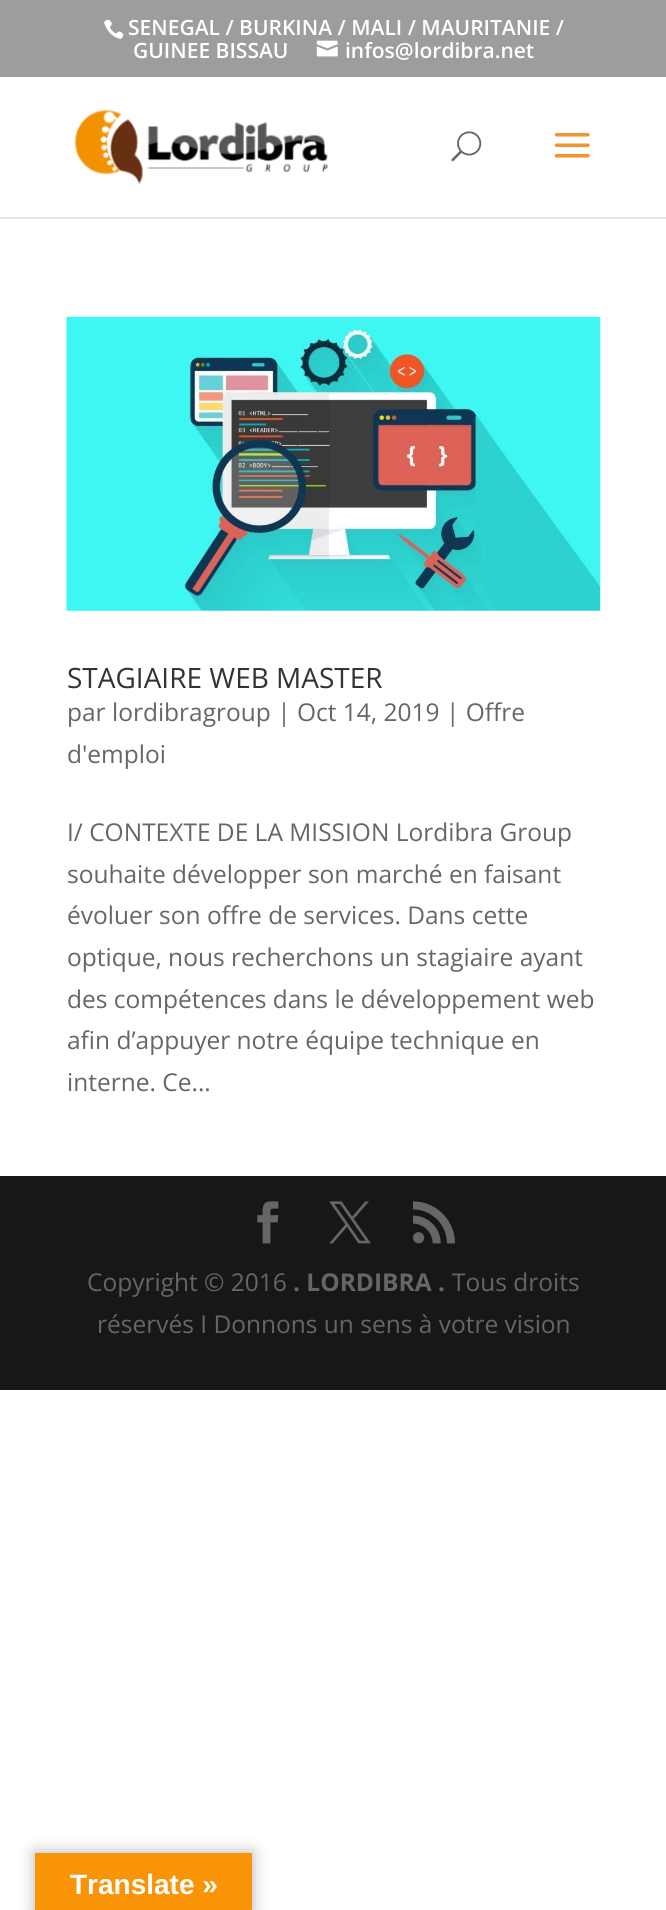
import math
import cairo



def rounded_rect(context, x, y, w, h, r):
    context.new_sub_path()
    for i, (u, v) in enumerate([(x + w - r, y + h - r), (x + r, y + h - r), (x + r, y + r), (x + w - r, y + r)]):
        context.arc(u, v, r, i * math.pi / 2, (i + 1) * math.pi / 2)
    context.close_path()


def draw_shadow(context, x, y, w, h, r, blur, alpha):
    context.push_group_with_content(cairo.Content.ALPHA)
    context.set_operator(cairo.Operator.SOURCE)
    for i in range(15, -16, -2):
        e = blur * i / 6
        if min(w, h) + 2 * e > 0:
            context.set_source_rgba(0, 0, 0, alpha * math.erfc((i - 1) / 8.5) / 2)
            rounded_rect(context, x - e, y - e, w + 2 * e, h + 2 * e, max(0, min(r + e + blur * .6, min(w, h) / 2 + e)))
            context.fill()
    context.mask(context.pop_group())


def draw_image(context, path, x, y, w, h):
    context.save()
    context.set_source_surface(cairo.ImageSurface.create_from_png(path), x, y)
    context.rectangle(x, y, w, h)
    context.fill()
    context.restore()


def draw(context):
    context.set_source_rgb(1, 1, 1)
    context.paint()
    context.set_source_rgb(157 / 255, 157 / 255, 156 / 255)
    context.rectangle(0, 0, 666, 77)
    context.fill()
    draw_image(context, "images/1.png", 104, 19, 20, 20)
    draw_image(context, "images/2.png", 316, 40, 22, 17)
    context.set_source_rgb(230 / 255, 230 / 255, 230 / 255)
    context.new_path()
    context.move_to(0, 217)
    context.line_to(0, 219)
    context.line_to(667, 219)
    context.line_to(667, 79)
    context.line_to(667, 217)
    context.close_path()
    context.fill()
    draw_image(context, "images/3.png", 74, 109, 254, 76)
    draw_image(context, "images/4.png", 451, 131, 31, 31)
    draw_image(context, "images/5.png", 554, 133, 36, 25)
    draw_image(context, "images/6.png", 66, 316, 535, 295)
    context.set_source_rgb(23 / 255, 23 / 255, 23 / 255)
    context.rectangle(0, 1176, 666, 214)
    context.fill()
    draw_image(context, "images/7.png", 257, 1201, 22, 43)
    draw_image(context, "images/8.png", 329, 1201, 42, 43)
    draw_image(context, "images/9.png", 413, 1201, 42, 43)
    context.set_source_rgb(0, 0, 0)
    draw_shadow(context, 35, 1853, 217, 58, 0, 8, 0.3)
    context.set_source_rgb(248 / 255, 148 / 255, 6 / 255)
    context.rectangle(35, 1853, 217, 57)
    context.fill()
    context.select_font_face("Open Sans SemiBold")
    context.set_font_size(21)
    context.set_source_rgb(1, 1, 1)
    context.move_to(128, 35)
    context.show_text("SENEGAL / BURKINA / MALI / MAURITANIE /")
    context.move_to(133, 58)
    context.show_text("GUINEE BISSAU")
    context.move_to(345, 58)
    context.show_text("infos@lordibra.net")
    context.select_font_face("Open Sans")
    context.set_font_size(28)
    context.set_source_rgb(51 / 255, 51 / 255, 51 / 255)
    context.move_to(67, 688)
    context.show_text("STAGIAIRE WEB MASTER")
    context.set_font_size(24.5)
    context.set_source_rgb(102 / 255, 102 / 255, 102 / 255)
    context.move_to(67, 721)
    context.show_text("par lordibragroup | Oct 14, 2019 | Offre")
    context.move_to(67, 763)
    context.show_text("d'emploi")
    context.move_to(67, 841)
    context.show_text("I/ CONTEXTE DE LA MISSION Lordibra Group")
    context.move_to(67, 883)
    context.show_text("souhaite développer son marché en faisant")
    context.move_to(67, 924)
    context.show_text("évoluer son offre de services. Dans cette")
    context.move_to(67, 966)
    context.show_text("optique, nous recherchons un stagiaire ayant")
    context.move_to(67, 1008)
    context.show_text("des compétences dans le développement web")
    context.move_to(67, 1049)
    context.show_text("afin d’appuyer notre équipe technique en")
    context.move_to(67, 1091)
    context.show_text("interne. Ce...")
    context.move_to(87, 1291)
    context.show_text("Copyright © 2016")
    context.select_font_face("Open Sans", cairo.FontSlant.NORMAL, cairo.FontWeight.BOLD)
    context.move_to(293, 1291)
    context.show_text(". LORDIBRA .")
    context.select_font_face("Open Sans")
    context.move_to(452, 1291)
    context.show_text("Tous droits")
    context.move_to(97, 1333)
    context.show_text("réservés I Donnons un sens à votre vision")
    context.select_font_face("Liberation Sans", cairo.FontSlant.NORMAL, cairo.FontWeight.BOLD)
    context.set_font_size(28)
    context.set_source_rgb(1, 1, 1)
    context.move_to(70, 1894)
    context.show_text("Translate »")


surface = cairo.ImageSurface(cairo.Format.RGB24, 666, 1910)
context = cairo.Context(surface)
options = cairo.FontOptions()
options.set_hint_metrics(cairo.HintMetrics.OFF)
options.set_hint_style(cairo.HintStyle.NONE)
context.set_font_options(options)
context.set_miter_limit(4)
draw(context)
surface.write_to_png("out.png")
